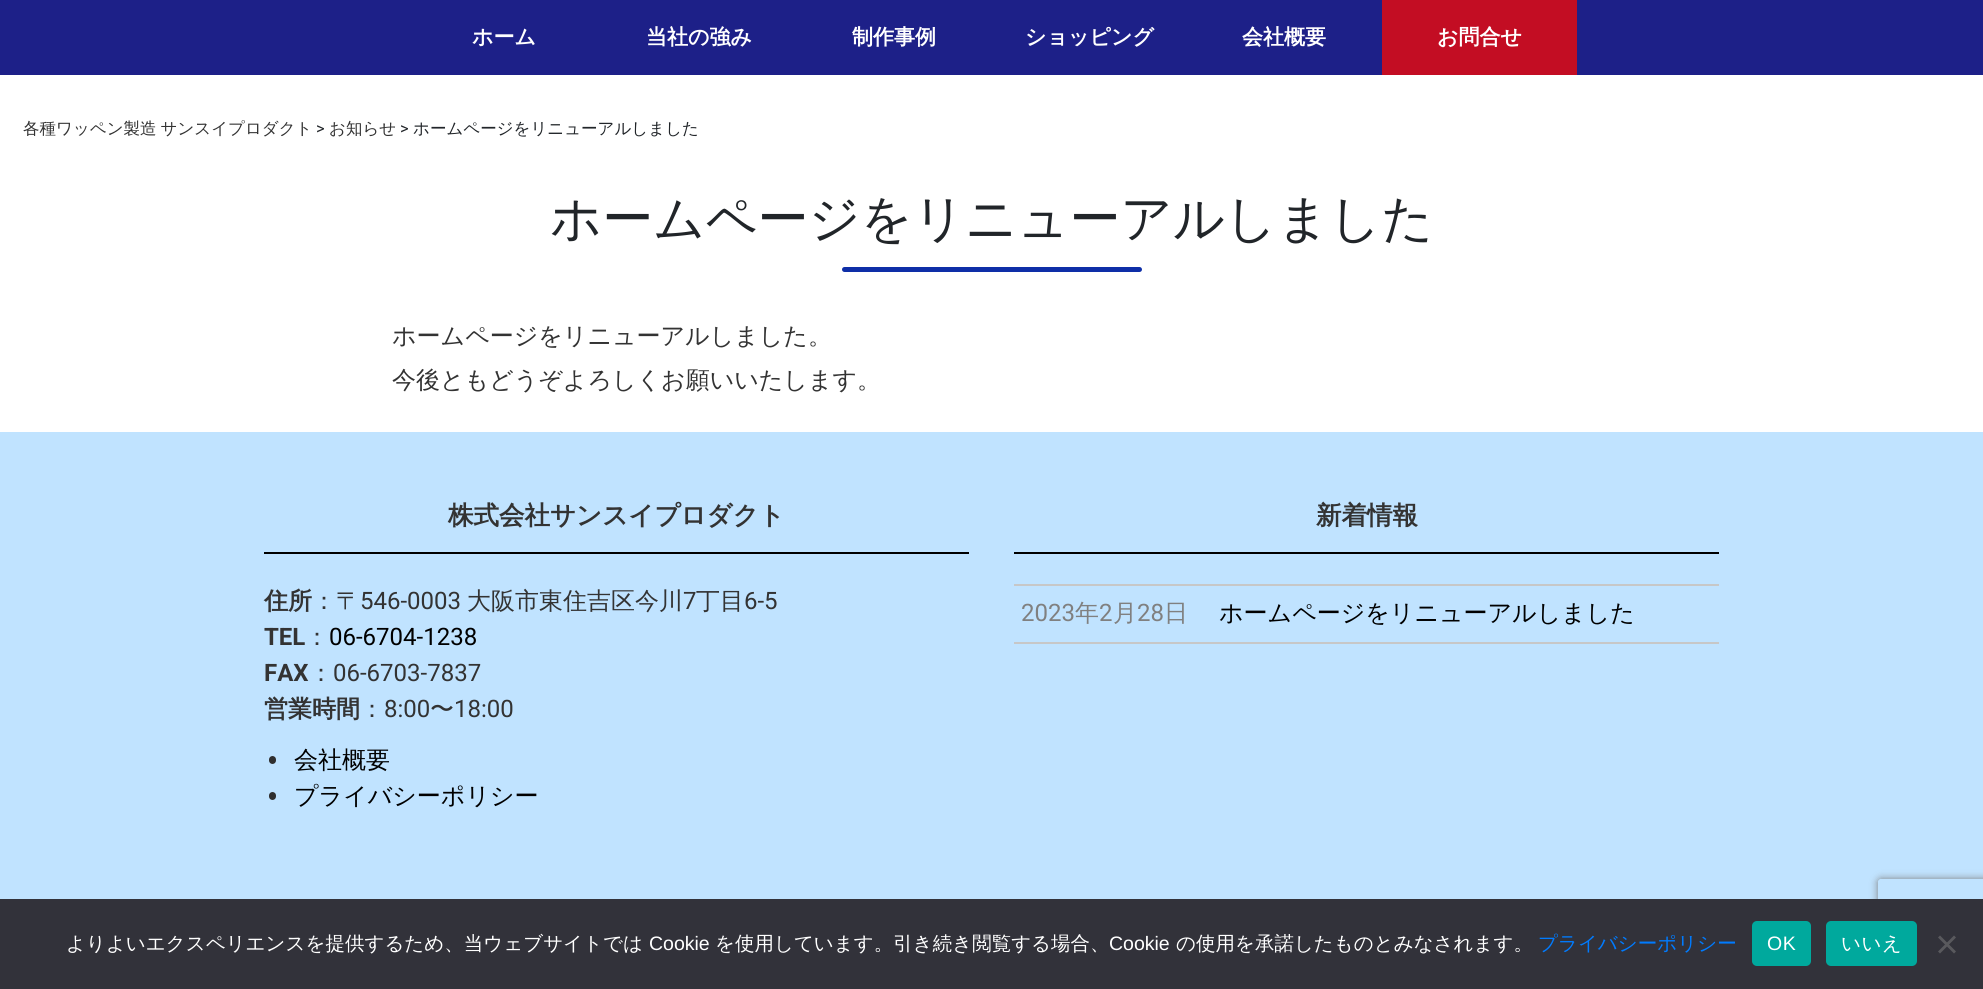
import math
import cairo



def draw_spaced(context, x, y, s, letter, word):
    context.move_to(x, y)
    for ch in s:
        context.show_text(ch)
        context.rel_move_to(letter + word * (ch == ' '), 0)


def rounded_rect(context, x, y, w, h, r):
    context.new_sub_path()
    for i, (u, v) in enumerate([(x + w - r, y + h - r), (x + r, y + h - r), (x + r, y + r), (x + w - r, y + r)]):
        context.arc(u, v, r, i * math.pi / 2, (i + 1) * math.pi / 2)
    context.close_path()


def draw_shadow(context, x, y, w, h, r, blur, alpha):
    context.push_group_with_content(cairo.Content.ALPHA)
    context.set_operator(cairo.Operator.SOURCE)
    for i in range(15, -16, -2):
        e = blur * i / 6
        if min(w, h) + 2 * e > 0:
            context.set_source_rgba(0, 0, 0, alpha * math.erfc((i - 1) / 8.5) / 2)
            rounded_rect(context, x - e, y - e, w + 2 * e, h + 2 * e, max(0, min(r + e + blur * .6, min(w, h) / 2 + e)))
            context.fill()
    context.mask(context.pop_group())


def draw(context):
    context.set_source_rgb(1, 1, 1)
    context.paint()
    context.set_source_rgb(29 / 255, 32 / 255, 136 / 255)
    context.rectangle(0, 0, 1983, 75)
    context.fill()
    context.set_source_rgb(195 / 255, 13 / 255, 35 / 255)
    context.rectangle(1382, 0, 195, 75)
    context.fill()
    context.set_source_rgb(14 / 255, 46 / 255, 167 / 255)
    rounded_rect(context, 842, 267, 300, 5, 2.5)
    context.fill()
    context.set_source_rgb(192 / 255, 227 / 255, 1)
    context.rectangle(0, 432, 1983, 467)
    context.fill()
    context.set_source_rgb(0, 0, 0)
    context.rectangle(264, 552, 705, 2)
    context.fill()
    context.set_source_rgb(47 / 255, 47 / 255, 47 / 255)
    rounded_rect(context, 269, 756, 7, 8, 3.5)
    context.fill()
    rounded_rect(context, 269, 792, 7, 8, 3.5)
    context.fill()
    context.set_source_rgb(0, 0, 0)
    context.rectangle(1014, 552, 705, 2)
    context.fill()
    context.set_source_rgb(199 / 255, 199 / 255, 199 / 255)
    context.rectangle(1014, 584, 705, 2)
    context.fill()
    context.rectangle(1014, 642, 705, 2)
    context.fill()
    context.save()
    context.set_fill_rule(cairo.FillRule.EVEN_ODD)
    context.new_path()
    context.move_to(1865, 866)
    context.line_to(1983, 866)
    context.line_to(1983, 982)
    context.line_to(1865, 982)
    context.close_path()
    context.move_to(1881, 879)
    context.line_to(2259, 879)
    context.curve_to(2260.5, 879, 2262, 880.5, 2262, 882)
    context.line_to(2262, 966)
    context.curve_to(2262, 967.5, 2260.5, 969, 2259, 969)
    context.line_to(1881, 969)
    context.curve_to(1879.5, 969, 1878, 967.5, 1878, 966)
    context.line_to(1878, 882)
    context.curve_to(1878, 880.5, 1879.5, 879, 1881, 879)
    context.close_path()
    context.clip()
    context.set_source_rgb(128 / 255, 128 / 255, 128 / 255)
    draw_shadow(context, 1878, 879, 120, 90, 3, 4, 1)
    context.restore()
    context.set_source_rgb(50 / 255, 50 / 255, 58 / 255)
    context.rectangle(0, 899, 1983, 90)
    context.fill()
    context.set_source_rgb(0, 169 / 255, 157 / 255)
    rounded_rect(context, 1752, 921, 59, 45, 5)
    context.fill()
    rounded_rect(context, 1826, 921, 91, 45, 5)
    context.fill()
    context.set_source_rgb(89 / 255, 89 / 255, 93 / 255)
    context.new_path()
    context.move_to(1954, 935.5)
    context.line_to(1956, 937.5)
    context.line_to(1940, 953.5)
    context.line_to(1938, 951.5)
    context.close_path()
    context.fill()
    context.new_path()
    context.move_to(1938, 937.5)
    context.line_to(1940, 935.5)
    context.line_to(1956, 951.5)
    context.line_to(1954, 953.5)
    context.close_path()
    context.fill()
    context.select_font_face("WenQuanYi Zen Hei", cairo.FontSlant.NORMAL, cairo.FontWeight.BOLD)
    context.set_font_size(21)
    context.set_source_rgb(1, 1, 1)
    context.move_to(472, 44)
    context.show_text("ホーム")
    context.move_to(646, 44)
    context.show_text("当社の強み")
    context.move_to(852, 44)
    context.show_text("制作事例")
    context.move_to(1025, 44)
    context.show_text("ショッピング")
    context.move_to(1242, 44)
    context.show_text("会社概要")
    context.move_to(1437, 44)
    context.show_text("お問合せ")
    context.select_font_face("WenQuanYi Zen Hei Medium")
    context.set_font_size(16.5)
    context.set_source_rgb(51 / 255, 51 / 255, 51 / 255)
    draw_spaced(context, 23, 134, "各種ワッペン製造 サンスイプロダクト", 0, -1)
    context.select_font_face("Roboto")
    context.set_source_rgb(33 / 255, 37 / 255, 41 / 255)
    context.move_to(316, 134)
    context.show_text(">")
    context.select_font_face("WenQuanYi Zen Hei Medium")
    context.set_source_rgb(51 / 255, 51 / 255, 51 / 255)
    context.move_to(329, 134)
    context.show_text("お知らせ")
    context.select_font_face("Roboto")
    context.set_source_rgb(33 / 255, 37 / 255, 41 / 255)
    context.move_to(400, 134)
    context.show_text(">")
    context.select_font_face("WenQuanYi Zen Hei Medium")
    context.move_to(413, 134)
    context.show_text("ホームページをリニューアルしました")
    context.set_font_size(51)
    context.move_to(550, 236)
    context.show_text("ホームページをリニューアルしました")
    context.set_font_size(24)
    context.set_source_rgb(51 / 255, 51 / 255, 51 / 255)
    context.move_to(392, 344)
    context.show_text("ホームページをリニューアルしました。")
    context.move_to(392, 388)
    context.show_text("今後ともどうぞよろしくお願いいたします。")
    context.select_font_face("WenQuanYi Zen Hei", cairo.FontSlant.NORMAL, cairo.FontWeight.BOLD)
    context.set_font_size(25.5)
    context.move_to(448, 524)
    context.show_text("株式会社サンスイプロダクト")
    context.set_font_size(24)
    context.move_to(264, 609)
    context.show_text("住所")
    context.select_font_face("WenQuanYi Zen Hei Medium")
    context.move_to(312, 609)
    context.show_text("：〒")
    context.select_font_face("Roboto")
    context.move_to(360, 609)
    context.show_text("546-0003")
    context.select_font_face("WenQuanYi Zen Hei Medium")
    context.move_to(467, 609)
    context.show_text("大阪市東住吉区今川")
    context.select_font_face("Roboto")
    context.move_to(683, 609)
    context.show_text("7")
    context.select_font_face("WenQuanYi Zen Hei Medium")
    context.move_to(696, 609)
    context.show_text("丁目")
    context.select_font_face("Roboto")
    context.move_to(744, 609)
    context.show_text("6-5")
    context.select_font_face("Roboto", cairo.FontSlant.NORMAL, cairo.FontWeight.BOLD)
    context.move_to(264, 645)
    context.show_text("TEL")
    context.select_font_face("WenQuanYi Zen Hei Medium")
    context.move_to(305, 645)
    context.show_text("：")
    context.select_font_face("Roboto")
    context.set_source_rgb(0, 0, 0)
    context.move_to(329, 645)
    context.show_text("06-6704-1238")
    context.select_font_face("Roboto", cairo.FontSlant.NORMAL, cairo.FontWeight.BOLD)
    context.set_source_rgb(51 / 255, 51 / 255, 51 / 255)
    context.move_to(264, 681)
    context.show_text("FAX")
    context.select_font_face("WenQuanYi Zen Hei Medium")
    context.move_to(309, 681)
    context.show_text("：")
    context.select_font_face("Roboto")
    context.move_to(333, 681)
    context.show_text("06-6703-7837")
    context.select_font_face("WenQuanYi Zen Hei", cairo.FontSlant.NORMAL, cairo.FontWeight.BOLD)
    context.move_to(264, 717)
    context.show_text("営業時間")
    context.select_font_face("WenQuanYi Zen Hei Medium")
    context.move_to(360, 717)
    context.show_text("：")
    context.select_font_face("Roboto")
    context.move_to(384, 717)
    context.show_text("8:00")
    context.select_font_face("WenQuanYi Zen Hei Medium")
    context.move_to(430, 717)
    context.show_text("〜")
    context.select_font_face("Roboto")
    context.move_to(454, 717)
    context.show_text("18:00")
    context.select_font_face("WenQuanYi Zen Hei Medium")
    context.set_source_rgb(0, 0, 0)
    context.move_to(294, 768)
    context.show_text("会社概要")
    context.move_to(294, 804)
    context.show_text("プライバシーポリシー")
    context.select_font_face("WenQuanYi Zen Hei", cairo.FontSlant.NORMAL, cairo.FontWeight.BOLD)
    context.set_font_size(25.5)
    context.set_source_rgb(51 / 255, 51 / 255, 51 / 255)
    context.move_to(1316, 524)
    context.show_text("新着情報")
    context.select_font_face("Roboto")
    context.set_font_size(24)
    context.set_source_rgb(128 / 255, 128 / 255, 128 / 255)
    context.move_to(1021, 621)
    context.show_text("2023")
    context.select_font_face("WenQuanYi Zen Hei Medium")
    context.move_to(1075, 621)
    context.show_text("年")
    context.select_font_face("Roboto")
    context.move_to(1099, 621)
    context.show_text("2")
    context.select_font_face("WenQuanYi Zen Hei Medium")
    context.move_to(1113, 621)
    context.show_text("月")
    context.select_font_face("Roboto")
    context.move_to(1137, 621)
    context.show_text("28")
    context.select_font_face("WenQuanYi Zen Hei Medium")
    context.move_to(1164, 621)
    context.show_text("日")
    context.set_source_rgb(0, 0, 0)
    context.move_to(1219, 621)
    context.show_text("ホームページをリニューアルしました")
    context.set_font_size(19.5)
    context.set_source_rgb(1, 1, 1)
    context.move_to(66, 950)
    context.show_text("よりよいエクスペリエンスを提供するため、当ウェブサイトでは")
    context.select_font_face("Liberation Sans")
    context.move_to(649, 950)
    context.show_text("Cookie")
    context.select_font_face("WenQuanYi Zen Hei Medium")
    context.move_to(715, 950)
    context.show_text("を使用しています。引き続き閲覧する場合、")
    context.select_font_face("Liberation Sans")
    context.move_to(1109, 950)
    context.show_text("Cookie")
    context.select_font_face("WenQuanYi Zen Hei Medium")
    context.move_to(1176, 950)
    context.show_text("の使用を承諾したものとみなされます。")
    context.set_source_rgb(0, 123 / 255, 1)
    context.move_to(1538, 950)
    context.show_text("プライバシーポリシー")
    context.select_font_face("Liberation Sans")
    context.set_source_rgb(1, 1, 1)
    draw_spaced(context, 1767, 950, "OK", 0.5, 0)
    context.select_font_face("WenQuanYi Zen Hei Medium")
    draw_spaced(context, 1841, 950, "いいえ", 0.5, 0)


surface = cairo.ImageSurface(cairo.Format.RGB24, 1983, 989)
context = cairo.Context(surface)
options = cairo.FontOptions()
options.set_hint_metrics(cairo.HintMetrics.OFF)
options.set_hint_style(cairo.HintStyle.NONE)
context.set_font_options(options)
context.set_miter_limit(4)
draw(context)
surface.write_to_png("out.png")
